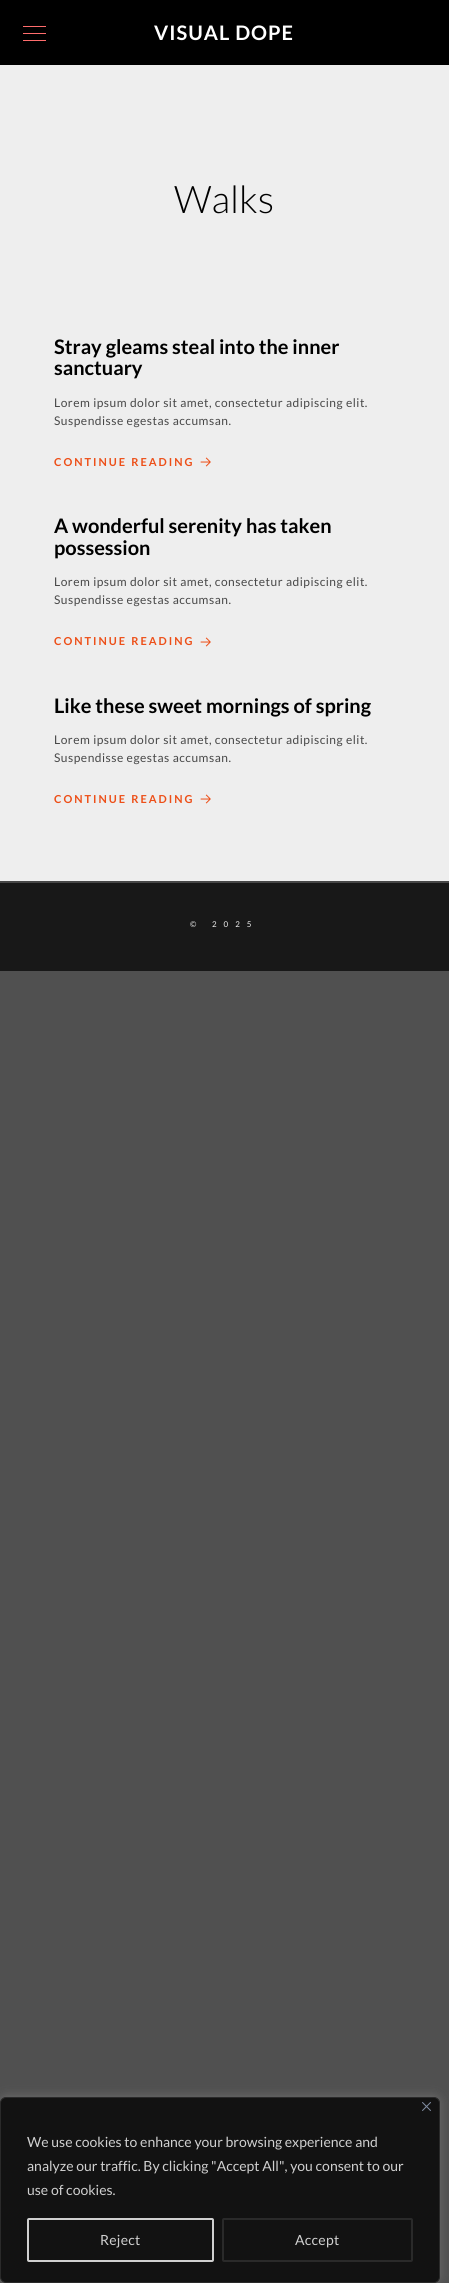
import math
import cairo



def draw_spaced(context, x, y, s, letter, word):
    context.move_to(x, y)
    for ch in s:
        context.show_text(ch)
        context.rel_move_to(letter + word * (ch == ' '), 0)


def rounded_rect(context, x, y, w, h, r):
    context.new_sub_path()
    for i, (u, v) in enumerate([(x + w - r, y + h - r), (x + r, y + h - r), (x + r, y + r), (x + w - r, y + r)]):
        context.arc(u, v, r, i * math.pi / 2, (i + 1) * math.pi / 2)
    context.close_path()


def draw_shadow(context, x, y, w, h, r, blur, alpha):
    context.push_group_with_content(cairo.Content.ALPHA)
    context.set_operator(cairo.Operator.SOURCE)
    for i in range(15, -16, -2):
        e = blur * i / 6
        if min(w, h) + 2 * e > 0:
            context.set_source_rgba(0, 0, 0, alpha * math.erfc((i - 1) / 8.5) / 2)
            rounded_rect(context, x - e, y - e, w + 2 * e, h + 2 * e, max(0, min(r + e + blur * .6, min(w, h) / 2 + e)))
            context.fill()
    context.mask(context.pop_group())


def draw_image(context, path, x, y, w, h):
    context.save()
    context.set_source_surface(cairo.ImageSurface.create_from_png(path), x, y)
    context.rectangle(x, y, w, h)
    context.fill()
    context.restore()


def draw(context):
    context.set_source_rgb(80 / 255, 80 / 255, 80 / 255)
    context.paint()
    context.set_source_rgb(24 / 255, 24 / 255, 24 / 255)
    context.rectangle(0, 883, 449, 88)
    context.fill()
    context.set_source_rgb(0, 0, 0)
    context.rectangle(0, 0, 449, 65)
    context.fill()
    context.set_source_rgb(1, 109 / 255, 109 / 255)
    context.rectangle(23, 33, 23, 1)
    context.fill()
    context.rectangle(23, 26, 23, 1)
    context.fill()
    context.rectangle(23, 40, 23, 1)
    context.fill()
    context.set_source_rgb(238 / 255, 238 / 255, 238 / 255)
    context.rectangle(0, 65, 449, 816)
    context.fill()
    context.set_source_rgb(71 / 255, 71 / 255, 71 / 255)
    context.rectangle(0, 881, 449, 2)
    context.fill()
    draw_image(context, "images/1.png", 200, 457, 11, 10)
    draw_image(context, "images/1.png", 200, 637, 11, 10)
    draw_image(context, "images/1.png", 200, 794, 11, 10)
    context.set_source_rgb(172 / 255, 171 / 255, 171 / 255)
    draw_shadow(context, 0, 2096, 440, 186, 6, 5, 0.3)
    context.set_source_rgb(18 / 255, 18 / 255, 18 / 255)
    rounded_rect(context, 0.5, 2097.5, 439, 185, 5.5)
    context.fill_preserve()
    context.set_source_rgb(42 / 255, 42 / 255, 42 / 255)
    context.set_line_width(1)
    context.stroke()
    draw_image(context, "images/2.png", 422, 2102, 9, 9)
    rounded_rect(context, 28, 2219, 185, 42, 1)
    context.set_source_rgb(208 / 255, 208 / 255, 208 / 255)
    context.set_line_width(2)
    context.stroke()
    rounded_rect(context, 223, 2219, 189, 42, 1)
    context.set_source_rgb(42 / 255, 42 / 255, 42 / 255)
    context.stroke()
    context.select_font_face("Lato", cairo.FontSlant.NORMAL, cairo.FontWeight.BOLD)
    context.set_font_size(20)
    context.set_source_rgb(1, 1, 1)
    draw_spaced(context, 154, 40, "VISUAL DOPE", 1, 0)
    context.select_font_face("Lato Light")
    context.set_font_size(38)
    context.set_source_rgb(0, 0, 0)
    context.move_to(174, 213)
    context.show_text("Walks")
    context.select_font_face("Lato", cairo.FontSlant.NORMAL, cairo.FontWeight.BOLD)
    context.set_font_size(20)
    context.move_to(54, 354)
    context.show_text("Stray gleams steal into the inner")
    context.move_to(54, 375)
    context.show_text("sanctuary")
    context.select_font_face("Lato")
    context.set_font_size(12)
    context.set_source_rgb(71 / 255, 71 / 255, 71 / 255)
    draw_spaced(context, 54, 407, "Lorem ipsum dolor sit amet, consectetur adipiscing elit.", 0.5, 0)
    draw_spaced(context, 54, 425, "Suspendisse egestas accumsan.", 0.5, 0)
    context.select_font_face("Lato", cairo.FontSlant.NORMAL, cairo.FontWeight.BOLD)
    context.set_font_size(11)
    context.set_source_rgb(237 / 255, 79 / 255, 24 / 255)
    draw_spaced(context, 54, 466, "CONTINUE READING", 2, 0)
    context.set_font_size(20)
    context.set_source_rgb(0, 0, 0)
    context.move_to(54, 533)
    context.show_text("A wonderful serenity has taken")
    context.move_to(54, 555)
    context.show_text("possession")
    context.select_font_face("Lato")
    context.set_font_size(12)
    context.set_source_rgb(71 / 255, 71 / 255, 71 / 255)
    draw_spaced(context, 54, 586, "Lorem ipsum dolor sit amet, consectetur adipiscing elit.", 0.5, 0)
    draw_spaced(context, 54, 604, "Suspendisse egestas accumsan.", 0.5, 0)
    context.select_font_face("Lato", cairo.FontSlant.NORMAL, cairo.FontWeight.BOLD)
    context.set_font_size(11)
    context.set_source_rgb(237 / 255, 79 / 255, 24 / 255)
    draw_spaced(context, 54, 645, "CONTINUE READING", 2, 0)
    context.set_font_size(20)
    context.set_source_rgb(0, 0, 0)
    context.move_to(54, 713)
    context.show_text("Like these sweet mornings of spring")
    context.select_font_face("Lato")
    context.set_font_size(12)
    context.set_source_rgb(71 / 255, 71 / 255, 71 / 255)
    draw_spaced(context, 54, 744, "Lorem ipsum dolor sit amet, consectetur adipiscing elit.", 0.5, 0)
    draw_spaced(context, 54, 762, "Suspendisse egestas accumsan.", 0.5, 0)
    context.select_font_face("Lato", cairo.FontSlant.NORMAL, cairo.FontWeight.BOLD)
    context.set_font_size(11)
    context.set_source_rgb(237 / 255, 79 / 255, 24 / 255)
    draw_spaced(context, 54, 803, "CONTINUE READING", 2, 0)
    context.select_font_face("Lato")
    context.set_font_size(8)
    context.set_source_rgb(238 / 255, 238 / 255, 238 / 255)
    draw_spaced(context, 190, 927, "© 2025", 7, 0)
    context.set_font_size(14)
    context.set_source_rgb(208 / 255, 208 / 255, 208 / 255)
    context.move_to(27, 2147)
    context.show_text("We use cookies to enhance your browsing experience and")
    context.move_to(27, 2171)
    context.show_text("analyze our traffic. By clicking \"Accept All\", you consent to our")
    context.move_to(27, 2195)
    context.show_text("use of cookies.")
    draw_spaced(context, 100, 2245, "Reject", 0.25, 0)
    draw_spaced(context, 295, 2245, "Accept", 0.25, 0)


surface = cairo.ImageSurface(cairo.Format.RGB24, 449, 2283)
context = cairo.Context(surface)
options = cairo.FontOptions()
options.set_hint_metrics(cairo.HintMetrics.OFF)
options.set_hint_style(cairo.HintStyle.NONE)
context.set_font_options(options)
context.set_miter_limit(4)
draw(context)
surface.write_to_png("out.png")
